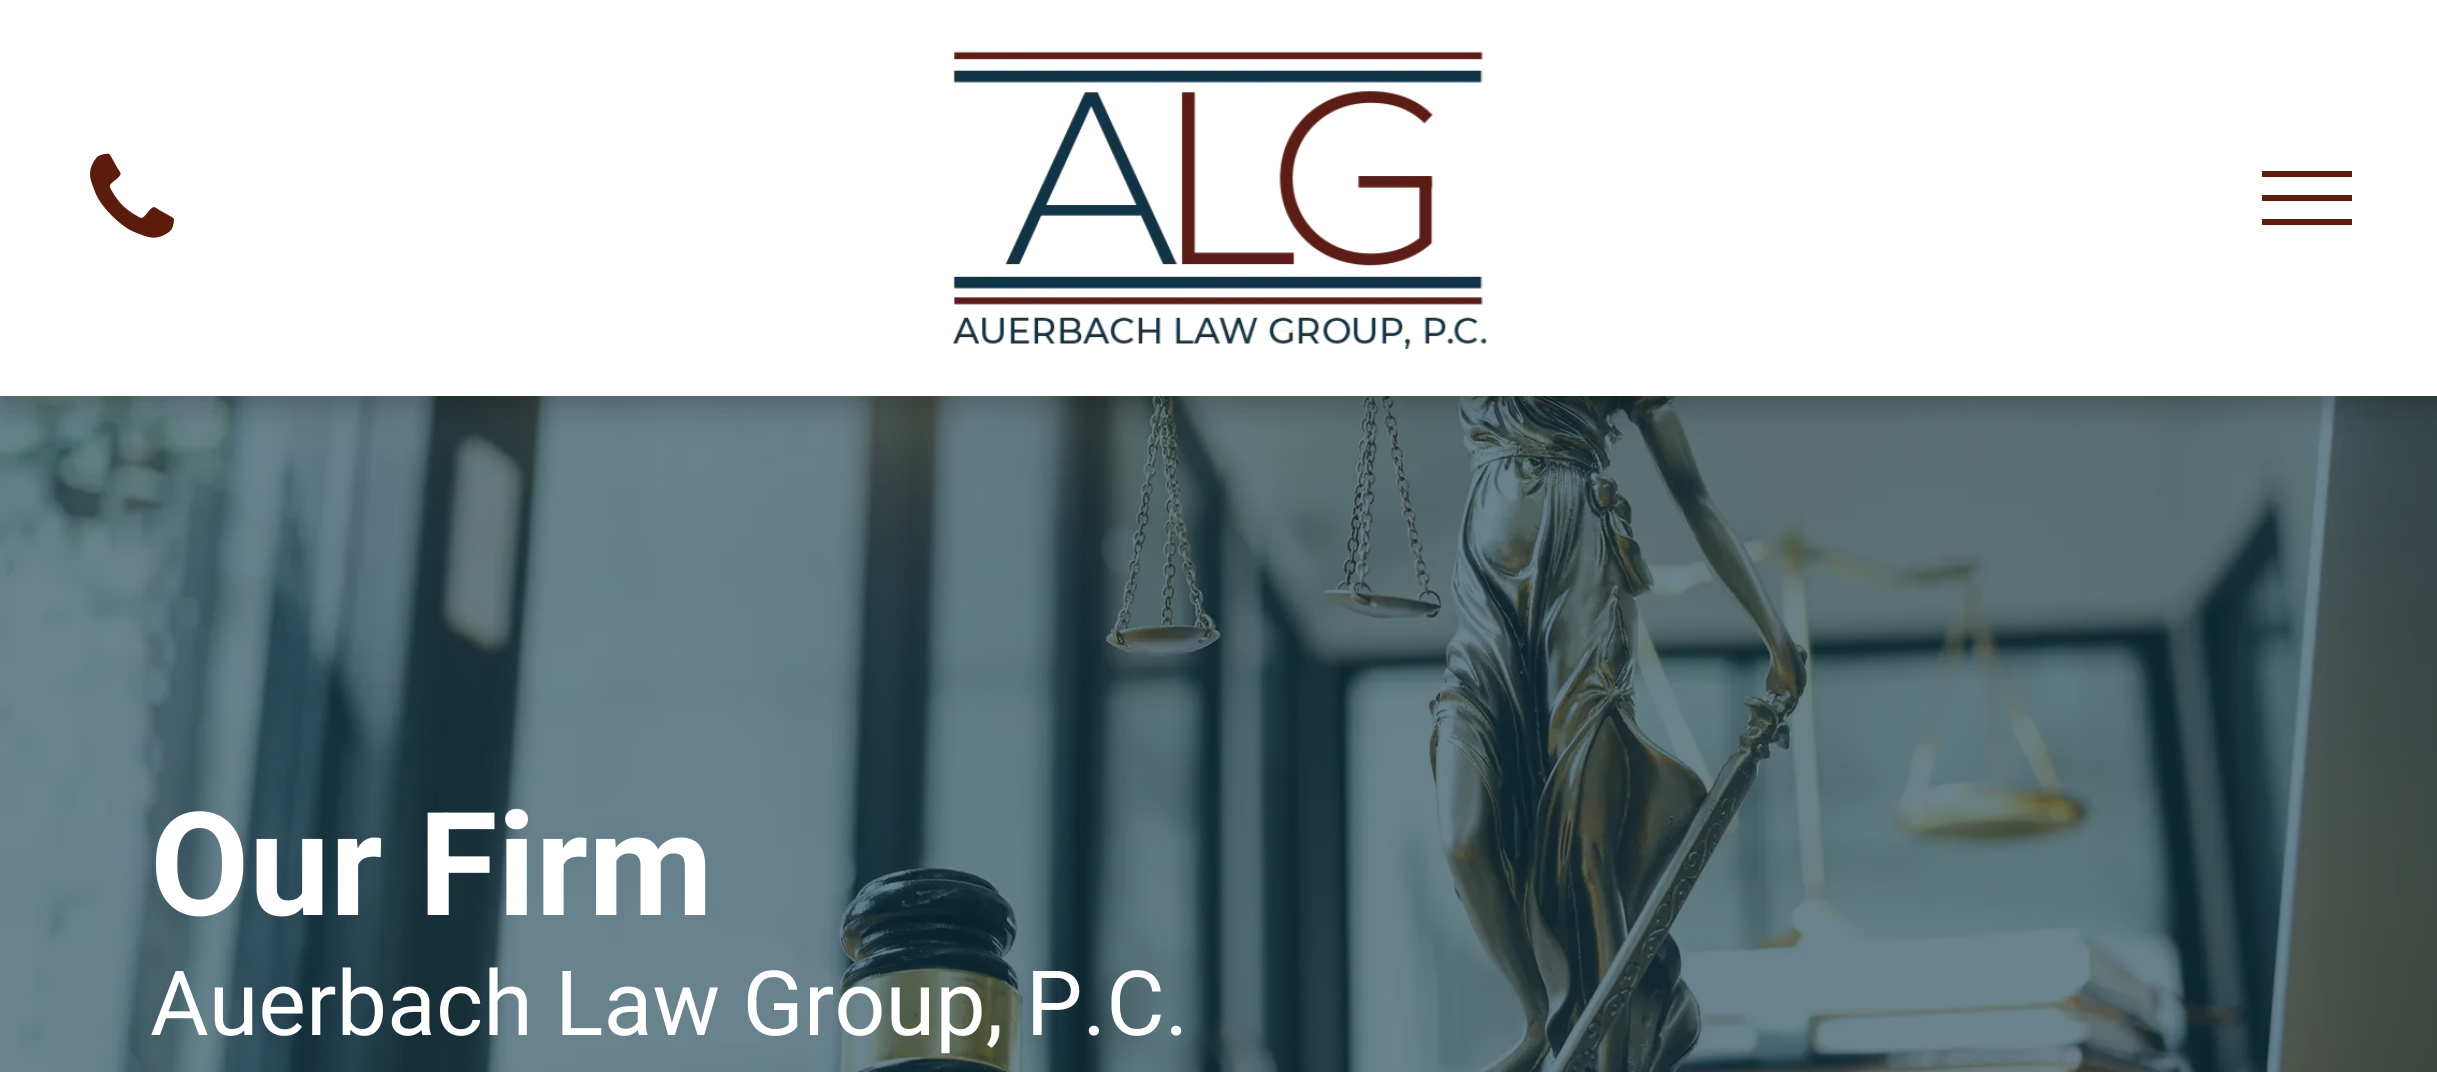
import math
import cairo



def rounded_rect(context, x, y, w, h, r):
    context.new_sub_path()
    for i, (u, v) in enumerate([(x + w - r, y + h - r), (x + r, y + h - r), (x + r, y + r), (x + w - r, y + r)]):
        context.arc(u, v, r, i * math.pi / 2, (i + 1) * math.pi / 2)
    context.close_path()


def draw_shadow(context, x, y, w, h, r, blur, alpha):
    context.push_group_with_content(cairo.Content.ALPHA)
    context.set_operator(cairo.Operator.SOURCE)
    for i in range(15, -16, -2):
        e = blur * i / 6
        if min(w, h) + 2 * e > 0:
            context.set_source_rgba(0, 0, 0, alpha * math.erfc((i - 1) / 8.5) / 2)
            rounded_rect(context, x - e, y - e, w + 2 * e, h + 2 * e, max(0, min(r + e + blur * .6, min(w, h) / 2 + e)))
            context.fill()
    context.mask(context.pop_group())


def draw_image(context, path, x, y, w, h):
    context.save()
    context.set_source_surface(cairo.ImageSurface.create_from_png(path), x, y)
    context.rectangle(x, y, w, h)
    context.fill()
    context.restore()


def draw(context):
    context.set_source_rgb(1, 1, 1)
    context.paint()
    draw_image(context, "images/3.png", 0, 396, 2437, 676)
    context.set_source_rgb(0, 0, 0)
    draw_shadow(context, 0, 9, 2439, 396, 0, 16.5, 0.25)
    context.set_source_rgb(1, 1, 1)
    context.rectangle(0, 0, 2437, 396)
    context.fill()
    draw_image(context, "images/1.png", 90, 153, 84, 85)
    draw_image(context, "images/2.png", 953, 51, 534, 298)
    context.set_source_rgb(91 / 255, 28 / 255, 12 / 255)
    context.rectangle(2262, 171, 90, 6)
    context.fill()
    context.rectangle(2262, 195, 90, 6)
    context.fill()
    context.rectangle(2262, 219, 90, 6)
    context.fill()
    context.select_font_face("Roboto", cairo.FontSlant.NORMAL, cairo.FontWeight.BOLD)
    context.set_font_size(144)
    context.set_source_rgb(1, 1, 1)
    context.move_to(150, 915)
    context.show_text("Our Firm")
    context.select_font_face("Roboto")
    context.set_font_size(90)
    context.move_to(150, 1035)
    context.show_text("Auerbach Law Group, P.C.")


surface = cairo.ImageSurface(cairo.Format.RGB24, 2437, 1072)
context = cairo.Context(surface)
options = cairo.FontOptions()
options.set_hint_metrics(cairo.HintMetrics.OFF)
options.set_hint_style(cairo.HintStyle.NONE)
context.set_font_options(options)
context.set_miter_limit(4)
draw(context)
surface.write_to_png("out.png")
